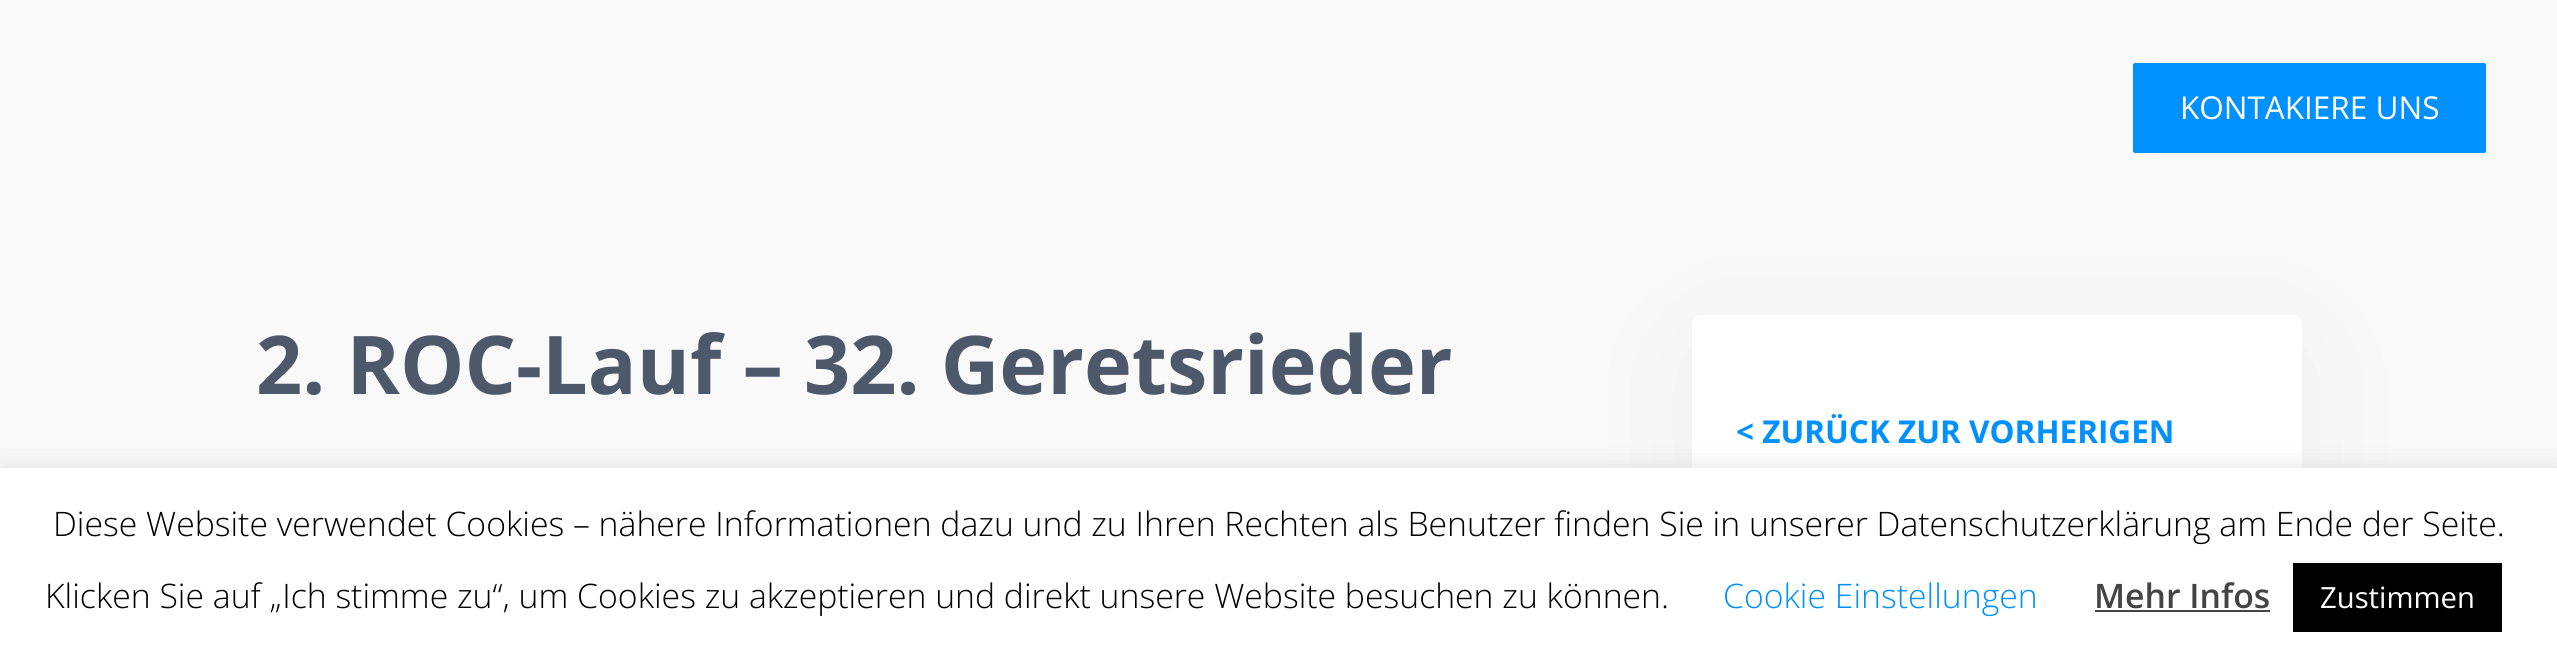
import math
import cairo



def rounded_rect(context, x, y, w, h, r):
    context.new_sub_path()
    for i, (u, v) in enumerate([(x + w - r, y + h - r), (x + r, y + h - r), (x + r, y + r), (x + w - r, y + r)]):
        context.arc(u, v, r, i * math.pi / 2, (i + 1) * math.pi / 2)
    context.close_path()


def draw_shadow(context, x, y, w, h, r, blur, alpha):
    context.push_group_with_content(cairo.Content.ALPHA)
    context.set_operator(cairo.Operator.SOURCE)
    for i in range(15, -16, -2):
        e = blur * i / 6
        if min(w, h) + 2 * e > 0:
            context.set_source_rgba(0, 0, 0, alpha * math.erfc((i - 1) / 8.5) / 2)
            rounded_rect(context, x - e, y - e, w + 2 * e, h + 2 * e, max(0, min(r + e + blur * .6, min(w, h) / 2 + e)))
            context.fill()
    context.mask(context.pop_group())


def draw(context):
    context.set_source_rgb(249 / 255, 249 / 255, 249 / 255)
    context.paint()
    context.set_source_rgb(0, 0, 0)
    draw_shadow(context, 1708, 353, 578, 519, 0, 67.5, 0.06)
    context.set_source_rgb(0, 144 / 255, 1)
    rounded_rect(context, 2134, 64, 351, 88, 1)
    context.fill_preserve()
    context.stroke()
    context.set_source_rgb(1, 1, 1)
    rounded_rect(context, 1692, 315, 610, 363, 9)
    context.fill()
    context.set_source_rgb(172 / 255, 171 / 255, 171 / 255)
    draw_shadow(context, 0, 466, 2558, 202, 0, 11, 0.3)
    context.set_source_rgb(1, 1, 1)
    context.rectangle(0, 468, 2557, 201)
    context.fill()
    context.set_source_rgb(68 / 255, 68 / 255, 68 / 255)
    context.rectangle(2095, 610, 175, 2)
    context.fill()
    context.set_source_rgb(0, 0, 0)
    context.rectangle(2293, 563, 209, 69)
    context.fill()
    context.select_font_face("Open Sans")
    context.set_font_size(31.5)
    context.set_source_rgb(1, 1, 1)
    context.move_to(2180, 119)
    context.show_text("KONTAKIERE UNS")
    context.select_font_face("Open Sans", cairo.FontSlant.NORMAL, cairo.FontWeight.BOLD)
    context.set_font_size(81)
    context.set_source_rgb(78 / 255, 88 / 255, 107 / 255)
    context.move_to(256, 394)
    context.show_text("2. ROC-Lauf – 32. Geretsrieder")
    context.set_font_size(31.5)
    context.set_source_rgb(0, 144 / 255, 1)
    context.move_to(1736, 443)
    context.show_text("< ZURÜCK ZUR VORHERIGEN")
    context.select_font_face("Open Sans Light")
    context.set_font_size(33.75)
    context.set_source_rgb(0, 0, 0)
    context.move_to(53, 536)
    context.show_text("Diese Website verwendet Cookies – nähere Informationen dazu und zu Ihren Rechten als Benutzer finden Sie in unserer Datenschutzerklärung am Ende der Seite.")
    context.move_to(45, 608)
    context.show_text("Klicken Sie auf „Ich stimme zu“, um Cookies zu akzeptieren und direkt unsere Website besuchen zu können.")
    context.set_source_rgb(0, 144 / 255, 1)
    context.move_to(1723, 608)
    context.show_text("Cookie Einstellungen")
    context.select_font_face("Open Sans SemiBold")
    context.set_source_rgb(68 / 255, 68 / 255, 68 / 255)
    context.move_to(2094, 608)
    context.show_text("Mehr Infos")
    context.select_font_face("Open Sans")
    context.set_font_size(29.25)
    context.set_source_rgb(1, 1, 1)
    context.move_to(2320, 608)
    context.show_text("Zustimmen")


surface = cairo.ImageSurface(cairo.Format.RGB24, 2557, 669)
context = cairo.Context(surface)
options = cairo.FontOptions()
options.set_hint_metrics(cairo.HintMetrics.OFF)
options.set_hint_style(cairo.HintStyle.NONE)
context.set_font_options(options)
context.set_miter_limit(4)
draw(context)
surface.write_to_png("out.png")
